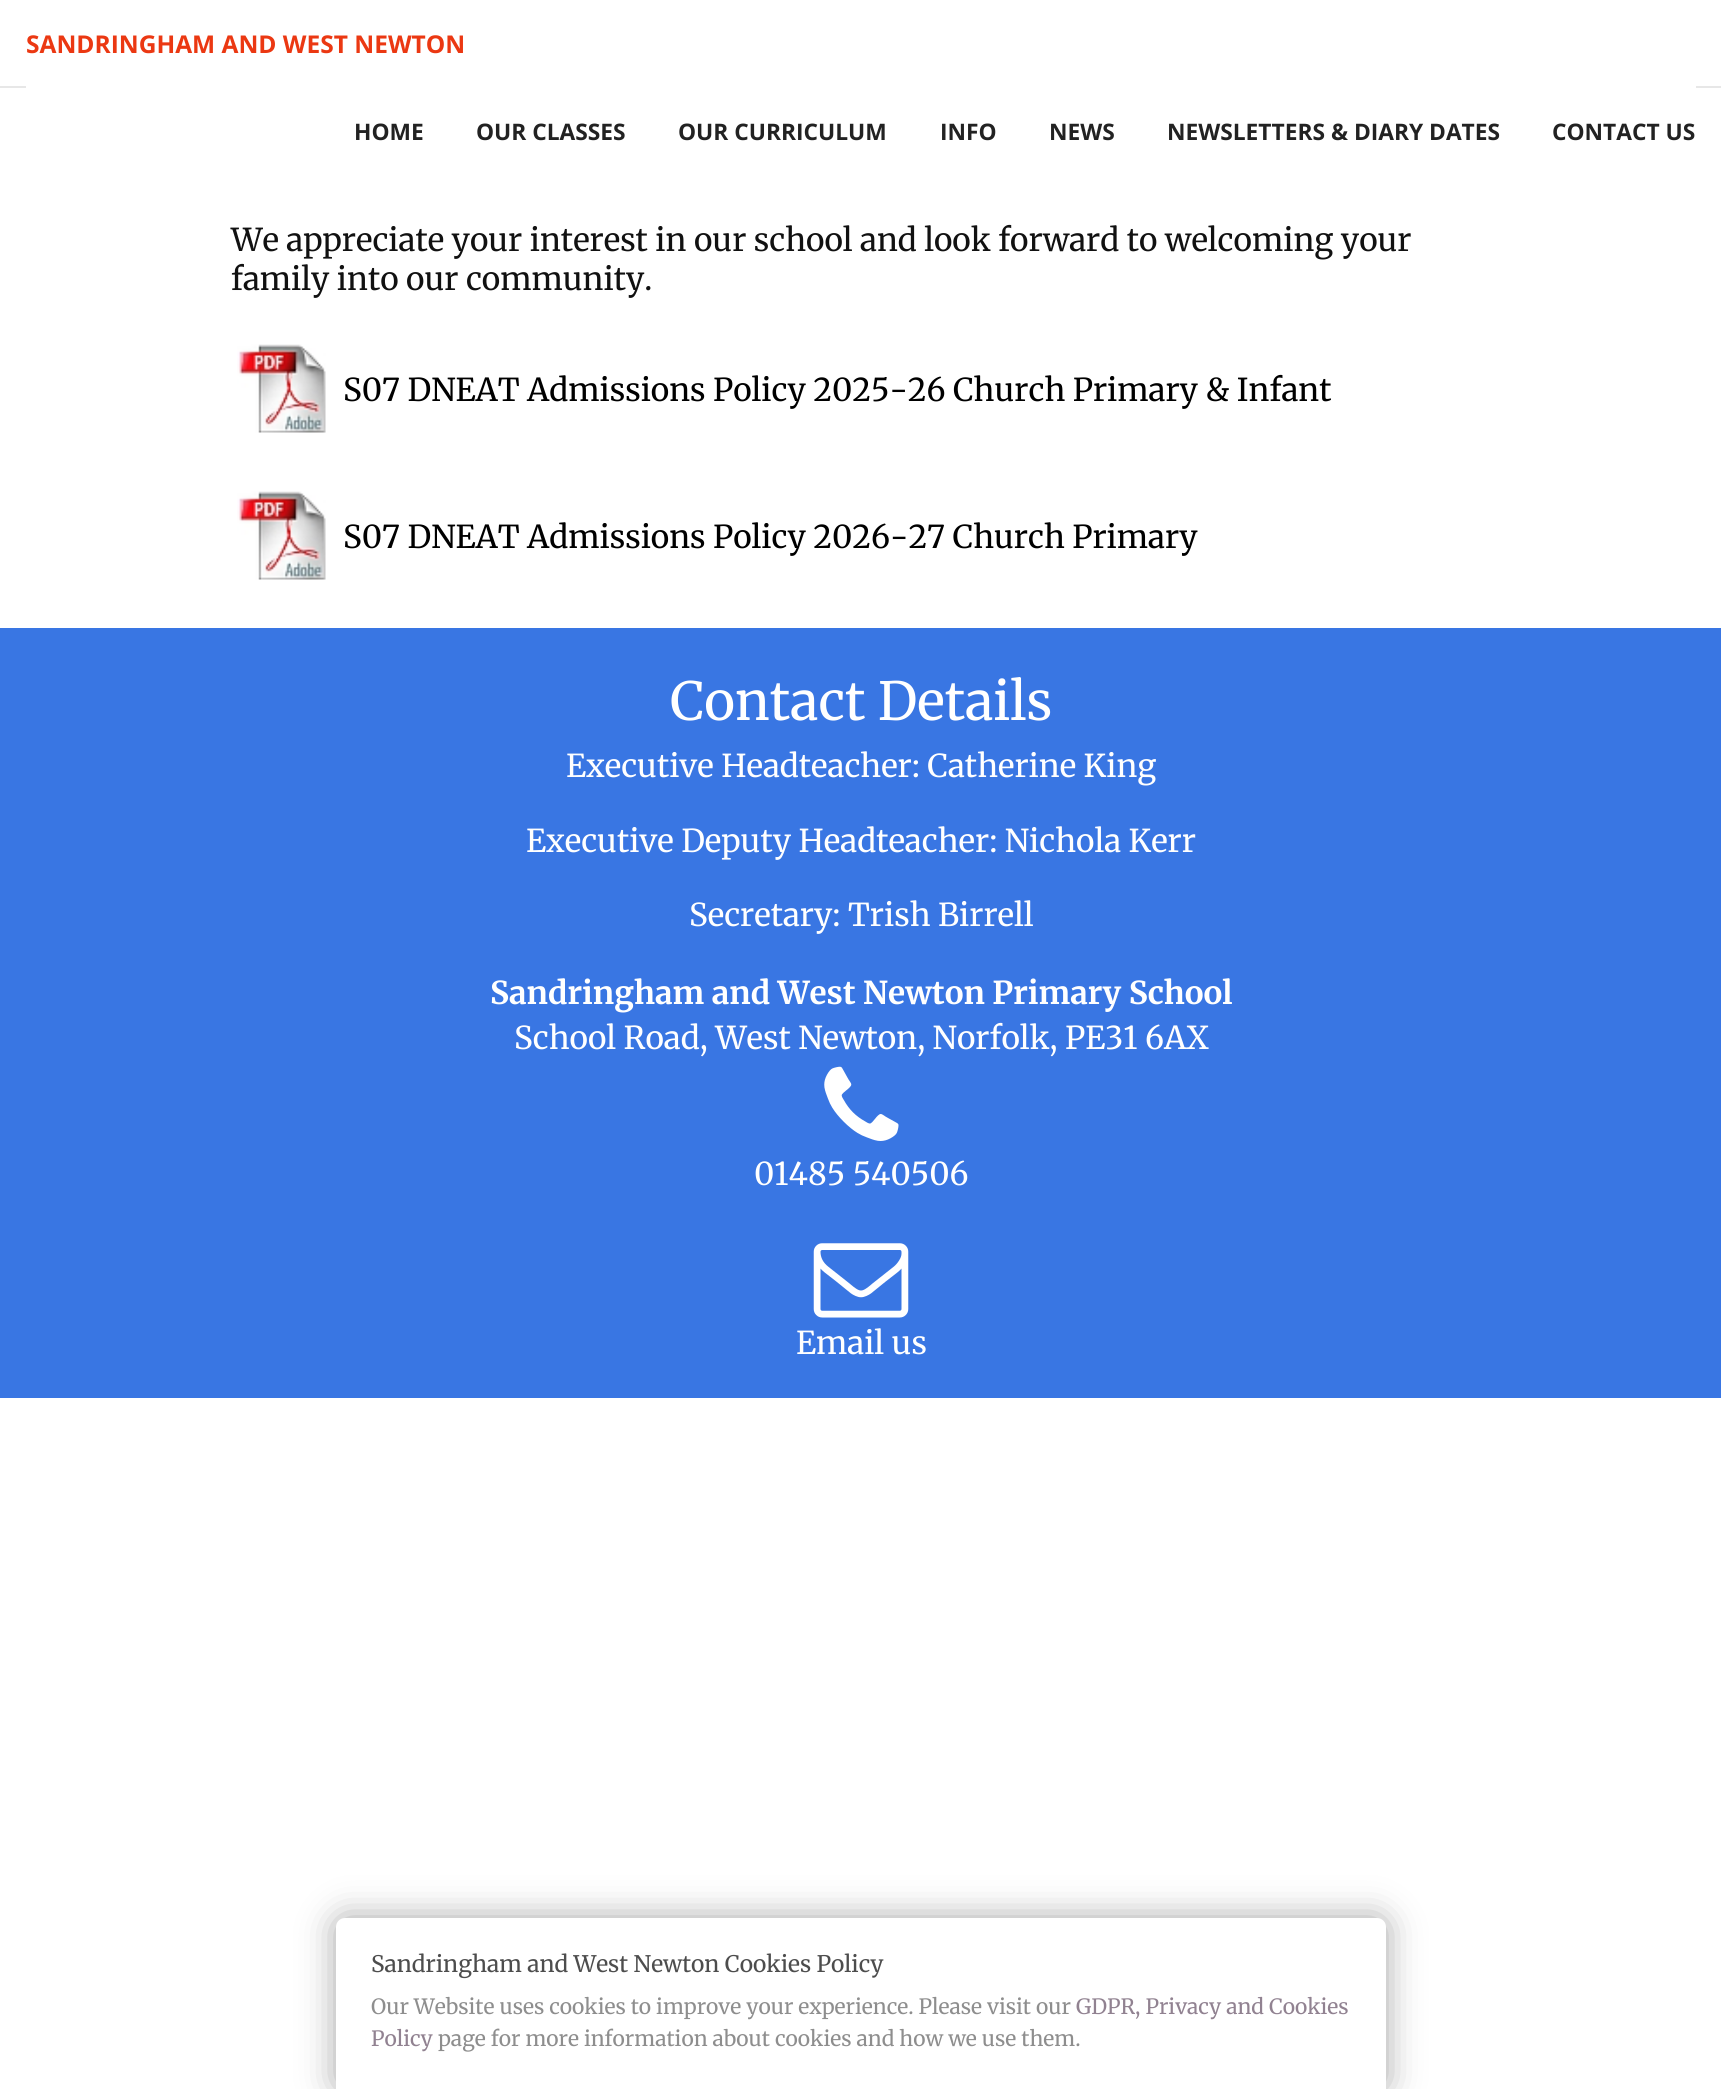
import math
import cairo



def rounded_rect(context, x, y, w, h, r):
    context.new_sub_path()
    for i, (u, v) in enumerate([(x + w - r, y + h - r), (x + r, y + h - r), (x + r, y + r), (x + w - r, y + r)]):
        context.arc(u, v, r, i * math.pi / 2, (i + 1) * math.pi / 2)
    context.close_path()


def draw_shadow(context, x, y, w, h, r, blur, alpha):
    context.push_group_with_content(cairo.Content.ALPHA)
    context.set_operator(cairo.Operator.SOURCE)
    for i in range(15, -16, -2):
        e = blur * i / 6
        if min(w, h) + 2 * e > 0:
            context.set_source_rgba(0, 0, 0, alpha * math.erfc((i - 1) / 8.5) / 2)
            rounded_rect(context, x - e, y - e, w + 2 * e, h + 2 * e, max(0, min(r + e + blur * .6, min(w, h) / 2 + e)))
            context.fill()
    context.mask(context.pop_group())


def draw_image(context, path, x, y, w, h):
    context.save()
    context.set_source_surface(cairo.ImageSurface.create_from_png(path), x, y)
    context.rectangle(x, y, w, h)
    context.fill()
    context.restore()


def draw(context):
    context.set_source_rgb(1, 1, 1)
    context.paint()
    context.set_source_rgb(231 / 255, 231 / 255, 231 / 255)
    context.rectangle(0, 86, 1721, 2)
    context.fill()
    context.set_source_rgb(1, 1, 1)
    context.rectangle(26, 86, 1670, 2)
    context.fill()
    draw_image(context, "images/1.png", 237, 344, 89, 89)
    draw_image(context, "images/1.png", 237, 491, 89, 89)
    context.set_source_rgb(57 / 255, 118 / 255, 227 / 255)
    context.rectangle(0, 628, 1721, 770)
    context.fill()
    draw_image(context, "images/2.png", 824, 1066, 75, 75)
    draw_image(context, "images/3.png", 813, 1243, 96, 75)
    context.set_source_rgb(166 / 255, 166 / 255, 166 / 255)
    draw_shadow(context, 336, 1918, 1050, 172, 9, 17.5, 1)
    context.set_source_rgb(1, 1, 1)
    context.new_path()
    context.move_to(345, 1918)
    context.line_to(1377, 1918)
    context.curve_to(1382, 1918, 1386, 1922, 1386, 1927)
    context.line_to(1386, 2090)
    context.line_to(336, 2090)
    context.line_to(336, 1927)
    context.curve_to(336, 1922, 340, 1918, 345, 1918)
    context.close_path()
    context.fill()
    context.select_font_face("Open Sans", cairo.FontSlant.NORMAL, cairo.FontWeight.BOLD)
    context.set_font_size(24.5)
    context.set_source_rgb(235 / 255, 56 / 255, 18 / 255)
    context.move_to(26, 53)
    context.show_text("SANDRINGHAM AND WEST NEWTON")
    context.set_font_size(22.75)
    context.set_source_rgb(34 / 255, 34 / 255, 34 / 255)
    context.move_to(354, 140)
    context.show_text("HOME")
    context.move_to(476, 140)
    context.show_text("OUR CLASSES")
    context.move_to(678, 140)
    context.show_text("OUR CURRICULUM")
    context.move_to(940, 140)
    context.show_text("INFO")
    context.move_to(1049, 140)
    context.show_text("NEWS")
    context.move_to(1167, 140)
    context.show_text("NEWSLETTERS & DIARY DATES")
    context.move_to(1552, 140)
    context.show_text("CONTACT US")
    context.select_font_face("Merriweather")
    context.set_font_size(31.5)
    context.set_source_rgb(17 / 255, 17 / 255, 17 / 255)
    context.move_to(231, 251)
    context.show_text("We appreciate your interest in our school and look forward to welcoming your")
    context.move_to(231, 290)
    context.show_text("family into our community.")
    context.set_source_rgb(0, 0, 0)
    context.move_to(343, 401)
    context.show_text("S07 DNEAT Admissions Policy 2025-26 Church Primary & Infant")
    context.move_to(343, 548)
    context.show_text("S07 DNEAT Admissions Policy 2026-27 Church Primary")
    context.set_font_size(52.5)
    context.set_source_rgb(1, 1, 1)
    context.move_to(670, 720)
    context.show_text("Contact Details")
    context.set_font_size(31.5)
    context.move_to(566, 777)
    context.show_text("Executive Headteacher: Catherine King")
    context.move_to(526, 852)
    context.show_text("Executive Deputy Headteacher: Nichola Kerr")
    context.move_to(689, 926)
    context.show_text("Secretary: Trish Birrell")
    context.select_font_face("Merriweather", cairo.FontSlant.NORMAL, cairo.FontWeight.BOLD)
    context.move_to(490, 1004)
    context.show_text("Sandringham and West Newton Primary School")
    context.select_font_face("Merriweather")
    context.move_to(514, 1049)
    context.show_text("School Road, West Newton, Norfolk, PE31 6AX")
    context.move_to(754, 1185)
    context.show_text("01485 540506")
    context.move_to(796, 1354)
    context.show_text("Email us")
    context.set_font_size(22.75)
    context.set_source_rgb(77 / 255, 77 / 255, 77 / 255)
    context.move_to(371, 1972)
    context.show_text("Sandringham and West Newton Cookies Policy")
    context.set_font_size(21)
    context.set_source_rgb(142 / 255, 142 / 255, 142 / 255)
    context.move_to(371, 2014)
    context.show_text("Our Website uses cookies to improve your experience. Please visit our")
    context.set_source_rgb(145 / 255, 130 / 255, 145 / 255)
    context.move_to(1076, 2014)
    context.show_text("GDPR, Privacy and Cookies")
    context.move_to(371, 2046)
    context.show_text("Policy")
    context.set_source_rgb(142 / 255, 142 / 255, 142 / 255)
    context.move_to(438, 2046)
    context.show_text("page for more information about cookies and how we use them.")


surface = cairo.ImageSurface(cairo.Format.RGB24, 1721, 2089)
context = cairo.Context(surface)
options = cairo.FontOptions()
options.set_hint_metrics(cairo.HintMetrics.OFF)
options.set_hint_style(cairo.HintStyle.NONE)
context.set_font_options(options)
context.set_miter_limit(4)
draw(context)
surface.write_to_png("out.png")
